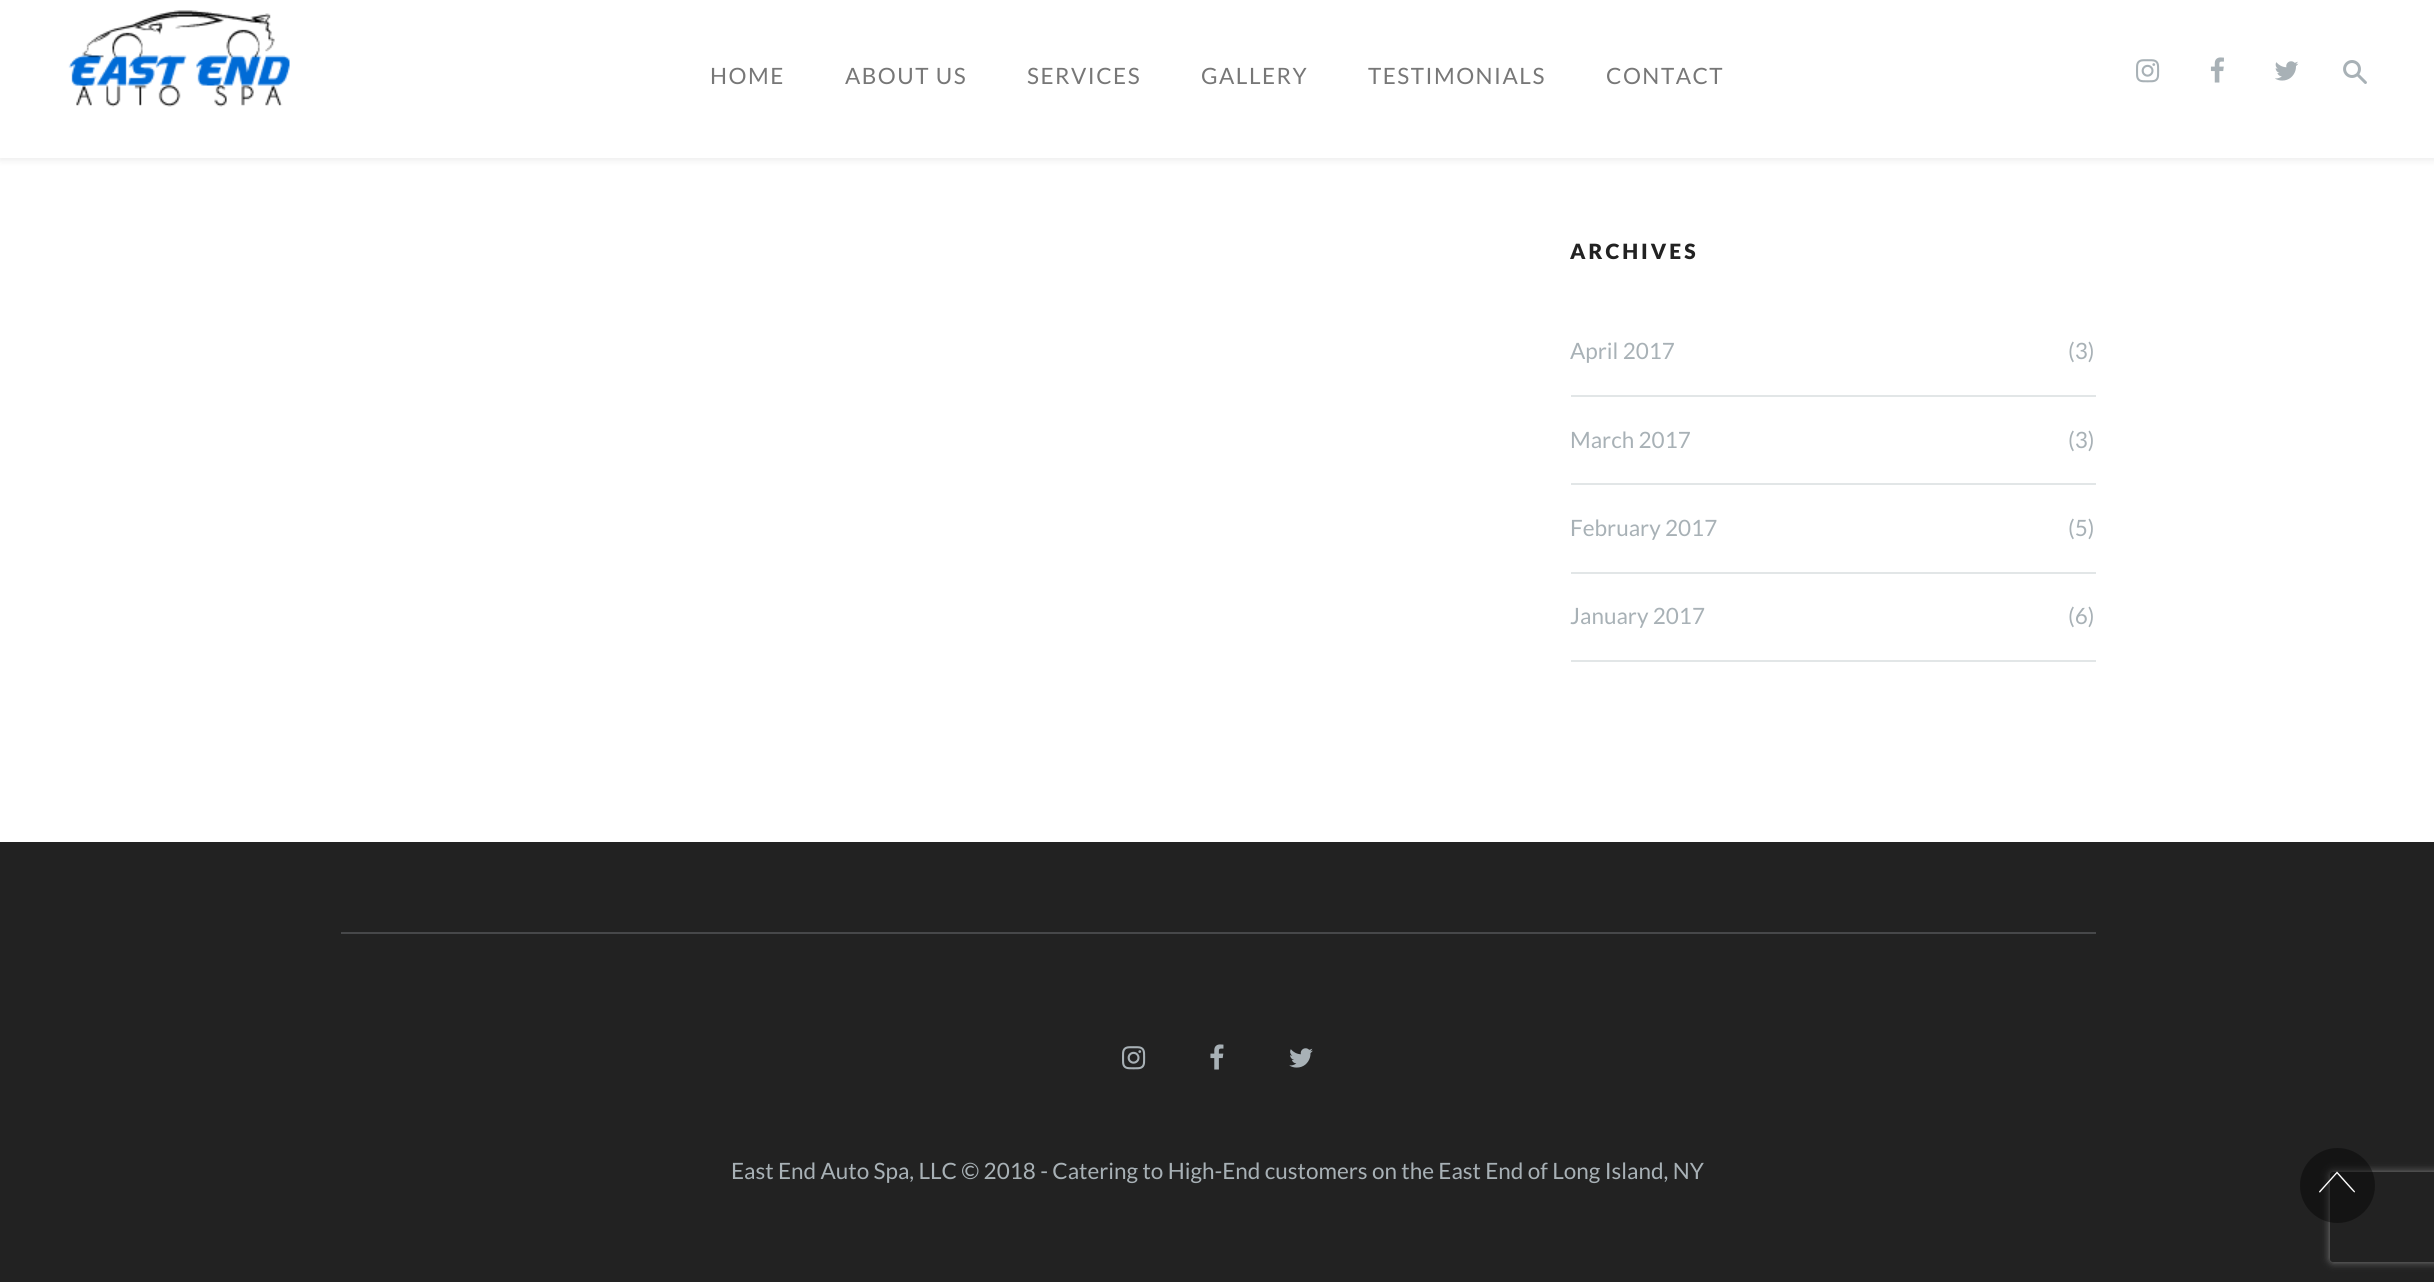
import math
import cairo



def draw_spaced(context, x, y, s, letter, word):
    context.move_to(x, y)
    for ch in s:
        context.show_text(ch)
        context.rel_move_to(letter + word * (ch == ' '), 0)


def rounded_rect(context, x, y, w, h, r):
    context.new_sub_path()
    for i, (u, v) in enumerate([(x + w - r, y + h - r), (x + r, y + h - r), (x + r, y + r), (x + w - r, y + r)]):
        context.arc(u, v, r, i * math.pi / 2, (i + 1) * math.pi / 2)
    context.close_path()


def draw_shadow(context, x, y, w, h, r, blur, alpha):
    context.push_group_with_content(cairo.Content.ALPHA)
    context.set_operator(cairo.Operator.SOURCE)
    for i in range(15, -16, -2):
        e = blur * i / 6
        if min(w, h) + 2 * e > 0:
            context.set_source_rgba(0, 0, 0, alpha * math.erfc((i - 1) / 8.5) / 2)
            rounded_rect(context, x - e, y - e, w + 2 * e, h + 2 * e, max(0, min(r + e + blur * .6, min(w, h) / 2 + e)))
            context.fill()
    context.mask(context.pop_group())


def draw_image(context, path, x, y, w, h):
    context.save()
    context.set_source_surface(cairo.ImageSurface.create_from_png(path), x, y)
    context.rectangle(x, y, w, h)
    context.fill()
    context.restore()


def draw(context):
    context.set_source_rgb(1, 1, 1)
    context.paint()
    context.set_source_rgb(0, 0, 0)
    draw_shadow(context, 0, 2, 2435, 157, 0, 4, 0.1)
    context.set_source_rgb(1, 1, 1)
    context.rectangle(0, 0, 2434, 158)
    context.fill()
    draw_image(context, "images/1.png", 68, 10, 222, 97)
    draw_image(context, "images/2.png", 2136, 59, 24, 24)
    draw_image(context, "images/3.png", 2210, 57, 14, 26)
    draw_image(context, "images/4.png", 2275, 61, 24, 20)
    draw_image(context, "images/5.png", 2343, 60, 24, 24)
    context.set_source_rgb(226 / 255, 230 / 255, 231 / 255)
    context.rectangle(1571, 395, 525, 2)
    context.fill()
    context.rectangle(1571, 483, 525, 2)
    context.fill()
    context.rectangle(1571, 572, 525, 2)
    context.fill()
    context.rectangle(1571, 660, 525, 2)
    context.fill()
    context.set_source_rgb(34 / 255, 34 / 255, 34 / 255)
    context.rectangle(0, 842, 2434, 440)
    context.fill()
    context.set_source_rgb(71 / 255, 72 / 255, 74 / 255)
    context.rectangle(341, 932, 1755, 2)
    context.fill()
    draw_image(context, "images/6.png", 1122, 1046, 24, 24)
    draw_image(context, "images/7.png", 1210, 1044, 14, 26)
    draw_image(context, "images/8.png", 1289, 1048, 24, 20)
    context.save()
    context.set_fill_rule(cairo.FillRule.EVEN_ODD)
    context.new_path()
    context.move_to(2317, 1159)
    context.line_to(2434, 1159)
    context.line_to(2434, 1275)
    context.line_to(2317, 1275)
    context.close_path()
    context.move_to(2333, 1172)
    context.line_to(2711, 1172)
    context.curve_to(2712.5, 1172, 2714, 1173.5, 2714, 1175)
    context.line_to(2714, 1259)
    context.curve_to(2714, 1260.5, 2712.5, 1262, 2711, 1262)
    context.line_to(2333, 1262)
    context.curve_to(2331.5, 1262, 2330, 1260.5, 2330, 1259)
    context.line_to(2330, 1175)
    context.curve_to(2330, 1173.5, 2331.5, 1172, 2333, 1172)
    context.close_path()
    context.clip()
    context.set_source_rgb(128 / 255, 128 / 255, 128 / 255)
    draw_shadow(context, 2330, 1172, 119, 90, 3, 4, 1)
    context.restore()
    context.set_source_rgba(0, 0, 0, 0.4)
    context.arc(2337.5, 1185.5, 37.5, 0, 2 * math.pi)
    context.fill()
    context.set_source_rgb(1, 1, 1)
    context.new_path()
    context.move_to(2354.5, 1192.5)
    context.curve_to(2353.5, 1192.5, 2339, 1175.5, 2337, 1173.5)
    context.line_to(2320, 1192.5)
    context.line_to(2319.5, 1192.5)
    context.line_to(2319, 1191.5)
    context.line_to(2337, 1171.5)
    context.line_to(2337.5, 1172)
    context.line_to(2355, 1191.5)
    context.curve_to(2355, 1192, 2354.5, 1192.5, 2354.5, 1192.5)
    context.close_path()
    context.fill()
    context.select_font_face("Lato")
    context.set_font_size(22.5)
    context.set_source_rgb(119 / 255, 119 / 255, 119 / 255)
    draw_spaced(context, 710, 84, "HOME", 1.5, 0)
    draw_spaced(context, 845, 84, "ABOUT US", 1.5, 0)
    draw_spaced(context, 1027, 84, "SERVICES", 1.5, 0)
    draw_spaced(context, 1201, 84, "GALLERY", 1.5, 0)
    draw_spaced(context, 1368, 84, "TESTIMONIALS", 1.5, 0)
    draw_spaced(context, 1606, 84, "CONTACT", 1.5, 0)
    context.select_font_face("Lato Black")
    context.set_font_size(21)
    context.set_source_rgb(34 / 255, 34 / 255, 34 / 255)
    draw_spaced(context, 1570, 259, "ARCHIVES", 3, 0)
    context.select_font_face("Lato")
    context.set_font_size(22.5)
    context.set_source_rgb(168 / 255, 177 / 255, 182 / 255)
    context.move_to(1570, 359)
    context.show_text("April 2017")
    context.move_to(2068, 359)
    context.show_text("(3)")
    context.move_to(1570, 448)
    context.show_text("March 2017")
    context.move_to(2068, 448)
    context.show_text("(3)")
    context.move_to(1570, 536)
    context.show_text("February 2017")
    context.move_to(2068, 536)
    context.show_text("(5)")
    context.move_to(1570, 624)
    context.show_text("January 2017")
    context.move_to(2068, 624)
    context.show_text("(6)")
    context.move_to(731, 1179)
    context.show_text("East End Auto Spa, LLC © 2018 - Catering to High-End customers on the East End of Long Island, NY")


surface = cairo.ImageSurface(cairo.Format.RGB24, 2434, 1282)
context = cairo.Context(surface)
options = cairo.FontOptions()
options.set_hint_metrics(cairo.HintMetrics.OFF)
options.set_hint_style(cairo.HintStyle.NONE)
context.set_font_options(options)
context.set_miter_limit(4)
draw(context)
surface.write_to_png("out.png")
